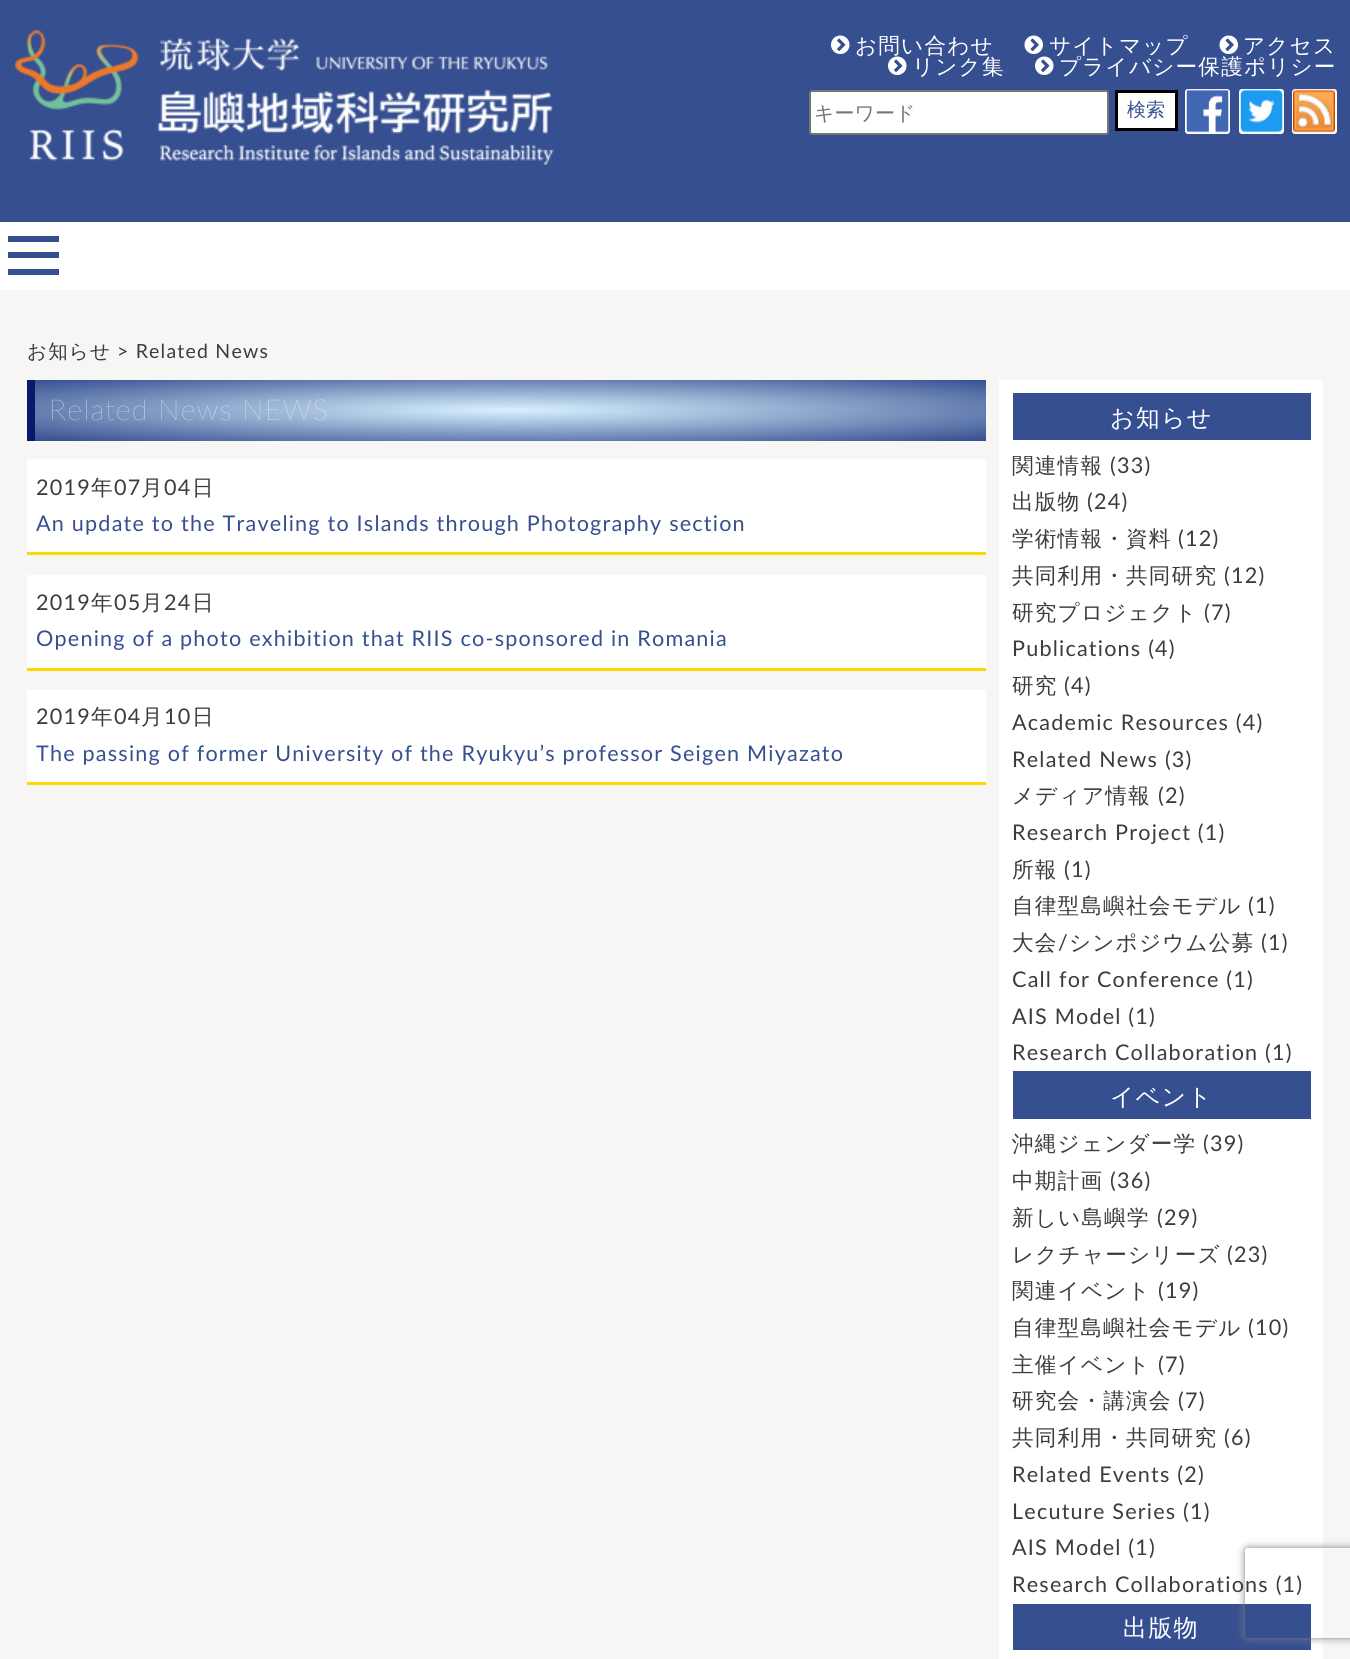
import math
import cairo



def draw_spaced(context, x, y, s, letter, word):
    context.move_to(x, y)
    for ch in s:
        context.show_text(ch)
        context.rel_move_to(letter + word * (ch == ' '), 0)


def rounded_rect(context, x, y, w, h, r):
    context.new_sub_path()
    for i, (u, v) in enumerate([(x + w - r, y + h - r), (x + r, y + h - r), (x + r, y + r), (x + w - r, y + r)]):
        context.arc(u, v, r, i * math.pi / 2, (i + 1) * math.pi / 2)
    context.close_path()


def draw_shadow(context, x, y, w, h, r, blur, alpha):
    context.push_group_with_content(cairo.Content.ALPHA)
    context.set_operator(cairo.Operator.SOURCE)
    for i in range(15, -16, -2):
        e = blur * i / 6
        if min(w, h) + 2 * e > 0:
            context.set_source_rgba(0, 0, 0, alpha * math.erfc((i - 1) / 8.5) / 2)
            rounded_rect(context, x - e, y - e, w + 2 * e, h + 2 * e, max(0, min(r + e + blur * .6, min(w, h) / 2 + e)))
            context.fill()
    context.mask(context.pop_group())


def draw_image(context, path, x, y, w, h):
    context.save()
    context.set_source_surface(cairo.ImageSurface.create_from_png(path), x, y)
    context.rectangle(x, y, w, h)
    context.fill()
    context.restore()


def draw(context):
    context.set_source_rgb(248 / 255, 245 / 255, 245 / 255)
    context.paint()
    context.set_source_rgb(1, 1, 1)
    context.rectangle(0, 222, 1350, 68)
    context.fill()
    context.set_source_rgb(54 / 255, 79 / 255, 144 / 255)
    context.rectangle(0, 0, 1350, 222)
    context.fill()
    draw_image(context, "images/1.png", 14, 30, 540, 135)
    draw_image(context, "images/2.png", 831, 35, 19, 19)
    draw_image(context, "images/3.png", 1024, 35, 19, 19)
    draw_image(context, "images/3.png", 1219, 35, 19, 19)
    context.set_source_rgb(1, 1, 1)
    rounded_rect(context, 810, 91, 298, 43, 2)
    context.fill_preserve()
    context.set_source_rgb(118 / 255, 118 / 255, 118 / 255)
    context.stroke()
    context.set_source_rgb(1, 1, 1)
    context.rectangle(1116.5, 91.5, 60, 38)
    context.fill_preserve()
    context.set_source_rgb(0, 0, 0)
    context.set_line_width(3)
    context.stroke()
    context.set_source_rgb(1, 1, 1)
    rounded_rect(context, 1185, 89, 45, 45, 3)
    context.fill()
    draw_image(context, "images/4.png", 1186, 89, 43, 44)
    rounded_rect(context, 1239, 89, 45, 45, 3)
    context.fill()
    draw_image(context, "images/5.png", 1240, 89, 43, 44)
    rounded_rect(context, 1292, 89, 45, 45, 3)
    context.fill()
    draw_image(context, "images/6.png", 1293, 89, 42, 44)
    context.set_source_rgb(54 / 255, 79 / 255, 144 / 255)
    context.rectangle(8, 236, 51, 6)
    context.fill()
    context.rectangle(8, 252, 51, 6)
    context.fill()
    context.rectangle(8, 269, 51, 6)
    context.fill()
    gradient = cairo.RadialGradient(0, 0, 0, 0, 0, 1)
    gradient.set_matrix(cairo.Matrix(1 / 672, 0, 0, 1 / 43, -1 * 510 / 672, -1 * 410 / 43))
    gradient.add_color_stop_rgba(0, 216 / 255, 242 / 255, 1, 1)
    gradient.add_color_stop_rgba(1, 54 / 255, 79 / 255, 144 / 255, 1)
    context.set_source(gradient)
    context.rectangle(35, 380, 951, 61)
    context.fill()
    context.set_source_rgb(9 / 255, 24 / 255, 109 / 255)
    context.rectangle(27, 380, 8, 61)
    context.fill()
    context.set_source_rgb(1, 1, 1)
    context.rectangle(27, 459, 959, 93)
    context.fill()
    context.set_source_rgb(253 / 255, 216 / 255, 0)
    context.rectangle(27, 552, 959, 3)
    context.fill()
    context.set_source_rgb(1, 1, 1)
    context.rectangle(27, 575, 959, 93)
    context.fill()
    context.set_source_rgb(253 / 255, 216 / 255, 0)
    context.rectangle(27, 668, 959, 3)
    context.fill()
    context.set_source_rgb(1, 1, 1)
    context.rectangle(27, 690, 959, 92)
    context.fill()
    context.set_source_rgb(253 / 255, 216 / 255, 0)
    context.rectangle(27, 782, 959, 3)
    context.fill()
    context.set_source_rgb(1, 1, 1)
    context.rectangle(999, 380, 324, 1279)
    context.fill()
    context.set_source_rgb(54 / 255, 79 / 255, 144 / 255)
    context.rectangle(1013, 393, 298, 47)
    context.fill()
    context.rectangle(1013, 1071, 298, 48)
    context.fill()
    context.rectangle(1013, 1604, 298, 46)
    context.fill()
    context.save()
    context.set_fill_rule(cairo.FillRule.EVEN_ODD)
    context.new_path()
    context.move_to(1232, 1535)
    context.line_to(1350, 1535)
    context.line_to(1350, 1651)
    context.line_to(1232, 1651)
    context.close_path()
    context.move_to(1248, 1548)
    context.line_to(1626, 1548)
    context.curve_to(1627.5, 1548, 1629, 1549.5, 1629, 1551)
    context.line_to(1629, 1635)
    context.curve_to(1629, 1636.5, 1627.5, 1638, 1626, 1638)
    context.line_to(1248, 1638)
    context.curve_to(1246.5, 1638, 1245, 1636.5, 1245, 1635)
    context.line_to(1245, 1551)
    context.curve_to(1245, 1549.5, 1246.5, 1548, 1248, 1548)
    context.close_path()
    context.clip()
    context.set_source_rgb(128 / 255, 128 / 255, 128 / 255)
    draw_shadow(context, 1245, 1548, 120, 90, 3, 4, 1)
    context.restore()
    context.select_font_face("WenQuanYi Zen Hei Medium")
    context.set_font_size(21.6)
    context.set_source_rgb(1, 1, 1)
    draw_spaced(context, 855, 53, "お問い合わせ", 1.2, 0)
    draw_spaced(context, 1049, 53, "サイトマップ", 1.2, 0)
    draw_spaced(context, 1243, 53, "アクセス", 1.2, 0)
    draw_image(context, "images/2.png", 888, 56, 19, 19)
    draw_spaced(context, 912, 74, "リンク集", 1.2, 0)
    draw_image(context, "images/2.png", 1035, 56, 19, 19)
    draw_spaced(context, 1059, 74, "プライバシー保護ポリシー", 1.2, 0)
    context.set_font_size(20)
    context.set_source_rgb(117 / 255, 117 / 255, 117 / 255)
    context.move_to(814, 120)
    context.show_text("キーワード")
    context.set_font_size(19)
    context.set_source_rgb(54 / 255, 79 / 255, 144 / 255)
    context.move_to(1127, 116)
    context.show_text("検索")
    context.set_font_size(19.5)
    context.set_source_rgb(60 / 255, 60 / 255, 60 / 255)
    draw_spaced(context, 27, 358, "お知らせ", 1.2, 0)
    context.select_font_face("Lato")
    draw_spaced(context, 117, 358, "> Related News", 1.2, 0)
    context.select_font_face("Lato ExtraLight")
    context.set_font_size(28.75)
    context.set_source_rgb(1, 1, 1)
    draw_spaced(context, 49, 420, "Related News NEWS", 1.2, 0)
    context.select_font_face("Lato")
    context.set_font_size(21.6)
    context.set_source_rgb(60 / 255, 60 / 255, 60 / 255)
    draw_spaced(context, 36, 495, "2019", 1.2, 0)
    context.select_font_face("WenQuanYi Zen Hei Medium")
    draw_spaced(context, 91, 495, "年", 1.2, 0)
    context.select_font_face("Lato")
    draw_spaced(context, 114, 495, "07", 1.2, 0)
    context.select_font_face("WenQuanYi Zen Hei Medium")
    draw_spaced(context, 141, 495, "月", 1.2, 0)
    context.select_font_face("Lato")
    draw_spaced(context, 164, 495, "04", 1.2, 0)
    context.select_font_face("WenQuanYi Zen Hei Medium")
    draw_spaced(context, 192, 495, "日", 1.2, 0)
    context.select_font_face("Lato")
    context.set_source_rgb(54 / 255, 79 / 255, 144 / 255)
    draw_spaced(context, 36, 531, "An update to the Traveling to Islands through Photography section", 1.2, 0)
    context.set_source_rgb(60 / 255, 60 / 255, 60 / 255)
    draw_spaced(context, 36, 610, "2019", 1.2, 0)
    context.select_font_face("WenQuanYi Zen Hei Medium")
    draw_spaced(context, 91, 610, "年", 1.2, 0)
    context.select_font_face("Lato")
    draw_spaced(context, 114, 610, "05", 1.2, 0)
    context.select_font_face("WenQuanYi Zen Hei Medium")
    draw_spaced(context, 141, 610, "月", 1.2, 0)
    context.select_font_face("Lato")
    draw_spaced(context, 164, 610, "24", 1.2, 0)
    context.select_font_face("WenQuanYi Zen Hei Medium")
    draw_spaced(context, 192, 610, "日", 1.2, 0)
    context.select_font_face("Lato")
    context.set_source_rgb(54 / 255, 79 / 255, 144 / 255)
    draw_spaced(context, 36, 646, "Opening of a photo exhibition that RIIS co-sponsored in Romania", 1.2, 0)
    context.set_source_rgb(60 / 255, 60 / 255, 60 / 255)
    draw_spaced(context, 36, 724, "2019", 1.2, 0)
    context.select_font_face("WenQuanYi Zen Hei Medium")
    draw_spaced(context, 91, 724, "年", 1.2, 0)
    context.select_font_face("Lato")
    draw_spaced(context, 114, 724, "04", 1.2, 0)
    context.select_font_face("WenQuanYi Zen Hei Medium")
    draw_spaced(context, 141, 724, "月", 1.2, 0)
    context.select_font_face("Lato")
    draw_spaced(context, 164, 724, "10", 1.2, 0)
    context.select_font_face("WenQuanYi Zen Hei Medium")
    draw_spaced(context, 192, 724, "日", 1.2, 0)
    context.select_font_face("Lato")
    context.set_source_rgb(54 / 255, 79 / 255, 144 / 255)
    draw_spaced(context, 36, 761, "The passing of former University of the Ryukyu’s professor Seigen Miyazato", 1.2, 0)
    context.select_font_face("WenQuanYi Zen Hei Medium")
    context.set_font_size(24)
    context.set_source_rgb(1, 1, 1)
    draw_spaced(context, 1110, 426, "お知らせ", 1.2, 0)
    context.set_font_size(21.6)
    context.set_source_rgb(60 / 255, 60 / 255, 60 / 255)
    draw_spaced(context, 1012, 473, "関連情報", 1.2, 0)
    context.select_font_face("Lato")
    draw_spaced(context, 1110, 473, "(33)", 1.2, 0)
    context.select_font_face("WenQuanYi Zen Hei Medium")
    draw_spaced(context, 1012, 509, "出版物", 1.2, 0)
    context.select_font_face("Lato")
    draw_spaced(context, 1087, 509, "(24)", 1.2, 0)
    context.select_font_face("WenQuanYi Zen Hei Medium")
    draw_spaced(context, 1012, 546, "学術情報・資料", 1.2, 0)
    context.select_font_face("Lato")
    draw_spaced(context, 1178, 546, "(12)", 1.2, 0)
    context.select_font_face("WenQuanYi Zen Hei Medium")
    draw_spaced(context, 1012, 583, "共同利用・共同研究", 1.2, 0)
    context.select_font_face("Lato")
    draw_spaced(context, 1224, 583, "(12)", 1.2, 0)
    context.select_font_face("WenQuanYi Zen Hei Medium")
    draw_spaced(context, 1012, 620, "研究プロジェクト", 1.2, 0)
    context.select_font_face("Lato")
    draw_spaced(context, 1204, 620, "(7)", 1.2, 0)
    draw_spaced(context, 1012, 656, "Publications (4)", 1.2, 0)
    context.select_font_face("WenQuanYi Zen Hei Medium")
    draw_spaced(context, 1012, 693, "研究", 1.2, 0)
    context.select_font_face("Lato")
    draw_spaced(context, 1064, 693, "(4)", 1.2, 0)
    draw_spaced(context, 1012, 730, "Academic Resources (4)", 1.2, 0)
    draw_spaced(context, 1012, 767, "Related News (3)", 1.2, 0)
    context.select_font_face("WenQuanYi Zen Hei Medium")
    draw_spaced(context, 1012, 803, "メディア情報", 1.2, 0)
    context.select_font_face("Lato")
    draw_spaced(context, 1158, 803, "(2)", 1.2, 0)
    draw_spaced(context, 1012, 840, "Research Project (1)", 1.2, 0)
    context.select_font_face("WenQuanYi Zen Hei Medium")
    draw_spaced(context, 1012, 877, "所報", 1.2, 0)
    context.select_font_face("Lato")
    draw_spaced(context, 1064, 877, "(1)", 1.2, 0)
    context.select_font_face("WenQuanYi Zen Hei Medium")
    draw_spaced(context, 1012, 913, "自律型島嶼社会モデル", 1.2, 0)
    context.select_font_face("Lato")
    draw_spaced(context, 1248, 913, "(1)", 1.2, 0)
    context.select_font_face("WenQuanYi Zen Hei Medium")
    draw_spaced(context, 1012, 950, "大会", 1.2, 0)
    context.select_font_face("Lato")
    draw_spaced(context, 1058, 950, "/", 1.2, 0)
    context.select_font_face("WenQuanYi Zen Hei Medium")
    draw_spaced(context, 1069, 950, "シンポジウム公募", 1.2, 0)
    context.select_font_face("Lato")
    draw_spaced(context, 1261, 950, "(1)", 1.2, 0)
    draw_spaced(context, 1012, 987, "Call for Conference (1)", 1.2, 0)
    draw_spaced(context, 1012, 1024, "AIS Model (1)", 1.2, 0)
    draw_spaced(context, 1012, 1060, "Research Collaboration (1)", 1.2, 0)
    context.select_font_face("WenQuanYi Zen Hei Medium")
    context.set_font_size(24)
    context.set_source_rgb(1, 1, 1)
    draw_spaced(context, 1110, 1105, "イベント", 1.2, 0)
    context.set_font_size(21.6)
    context.set_source_rgb(60 / 255, 60 / 255, 60 / 255)
    draw_spaced(context, 1012, 1151, "沖縄ジェンダー学", 1.2, 0)
    context.select_font_face("Lato")
    draw_spaced(context, 1203, 1151, "(39)", 1.2, 0)
    context.select_font_face("WenQuanYi Zen Hei Medium")
    draw_spaced(context, 1012, 1188, "中期計画", 1.2, 0)
    context.select_font_face("Lato")
    draw_spaced(context, 1110, 1188, "(36)", 1.2, 0)
    context.select_font_face("WenQuanYi Zen Hei Medium")
    draw_spaced(context, 1012, 1225, "新しい島嶼学", 1.2, 0)
    context.select_font_face("Lato")
    draw_spaced(context, 1157, 1225, "(29)", 1.2, 0)
    context.select_font_face("WenQuanYi Zen Hei Medium")
    draw_spaced(context, 1012, 1262, "レクチャーシリーズ", 1.2, 0)
    context.select_font_face("Lato")
    draw_spaced(context, 1227, 1262, "(23)", 1.2, 0)
    context.select_font_face("WenQuanYi Zen Hei Medium")
    draw_spaced(context, 1012, 1298, "関連イベント", 1.2, 0)
    context.select_font_face("Lato")
    draw_spaced(context, 1158, 1298, "(19)", 1.2, 0)
    context.select_font_face("WenQuanYi Zen Hei Medium")
    draw_spaced(context, 1012, 1335, "自律型島嶼社会モデル", 1.2, 0)
    context.select_font_face("Lato")
    draw_spaced(context, 1248, 1335, "(10)", 1.2, 0)
    context.select_font_face("WenQuanYi Zen Hei Medium")
    draw_spaced(context, 1012, 1372, "主催イベント", 1.2, 0)
    context.select_font_face("Lato")
    draw_spaced(context, 1158, 1372, "(7)", 1.2, 0)
    context.select_font_face("WenQuanYi Zen Hei Medium")
    draw_spaced(context, 1012, 1408, "研究会・講演会", 1.2, 0)
    context.select_font_face("Lato")
    draw_spaced(context, 1178, 1408, "(7)", 1.2, 0)
    context.select_font_face("WenQuanYi Zen Hei Medium")
    draw_spaced(context, 1012, 1445, "共同利用・共同研究", 1.2, 0)
    context.select_font_face("Lato")
    draw_spaced(context, 1224, 1445, "(6)", 1.2, 0)
    draw_spaced(context, 1012, 1482, "Related Events (2)", 1.2, 0)
    draw_spaced(context, 1012, 1519, "Lecuture Series (1)", 1.2, 0)
    draw_spaced(context, 1012, 1555, "AIS Model (1)", 1.2, 0)
    draw_spaced(context, 1012, 1592, "Research Collaborations (1)", 1.2, 0)
    context.select_font_face("WenQuanYi Zen Hei Medium")
    context.set_font_size(24)
    context.set_source_rgb(1, 1, 1)
    draw_spaced(context, 1123, 1636, "出版物", 1.2, 0)


surface = cairo.ImageSurface(cairo.Format.RGB24, 1350, 1659)
context = cairo.Context(surface)
options = cairo.FontOptions()
options.set_hint_metrics(cairo.HintMetrics.OFF)
options.set_hint_style(cairo.HintStyle.NONE)
context.set_font_options(options)
context.set_miter_limit(4)
draw(context)
surface.write_to_png("out.png")
